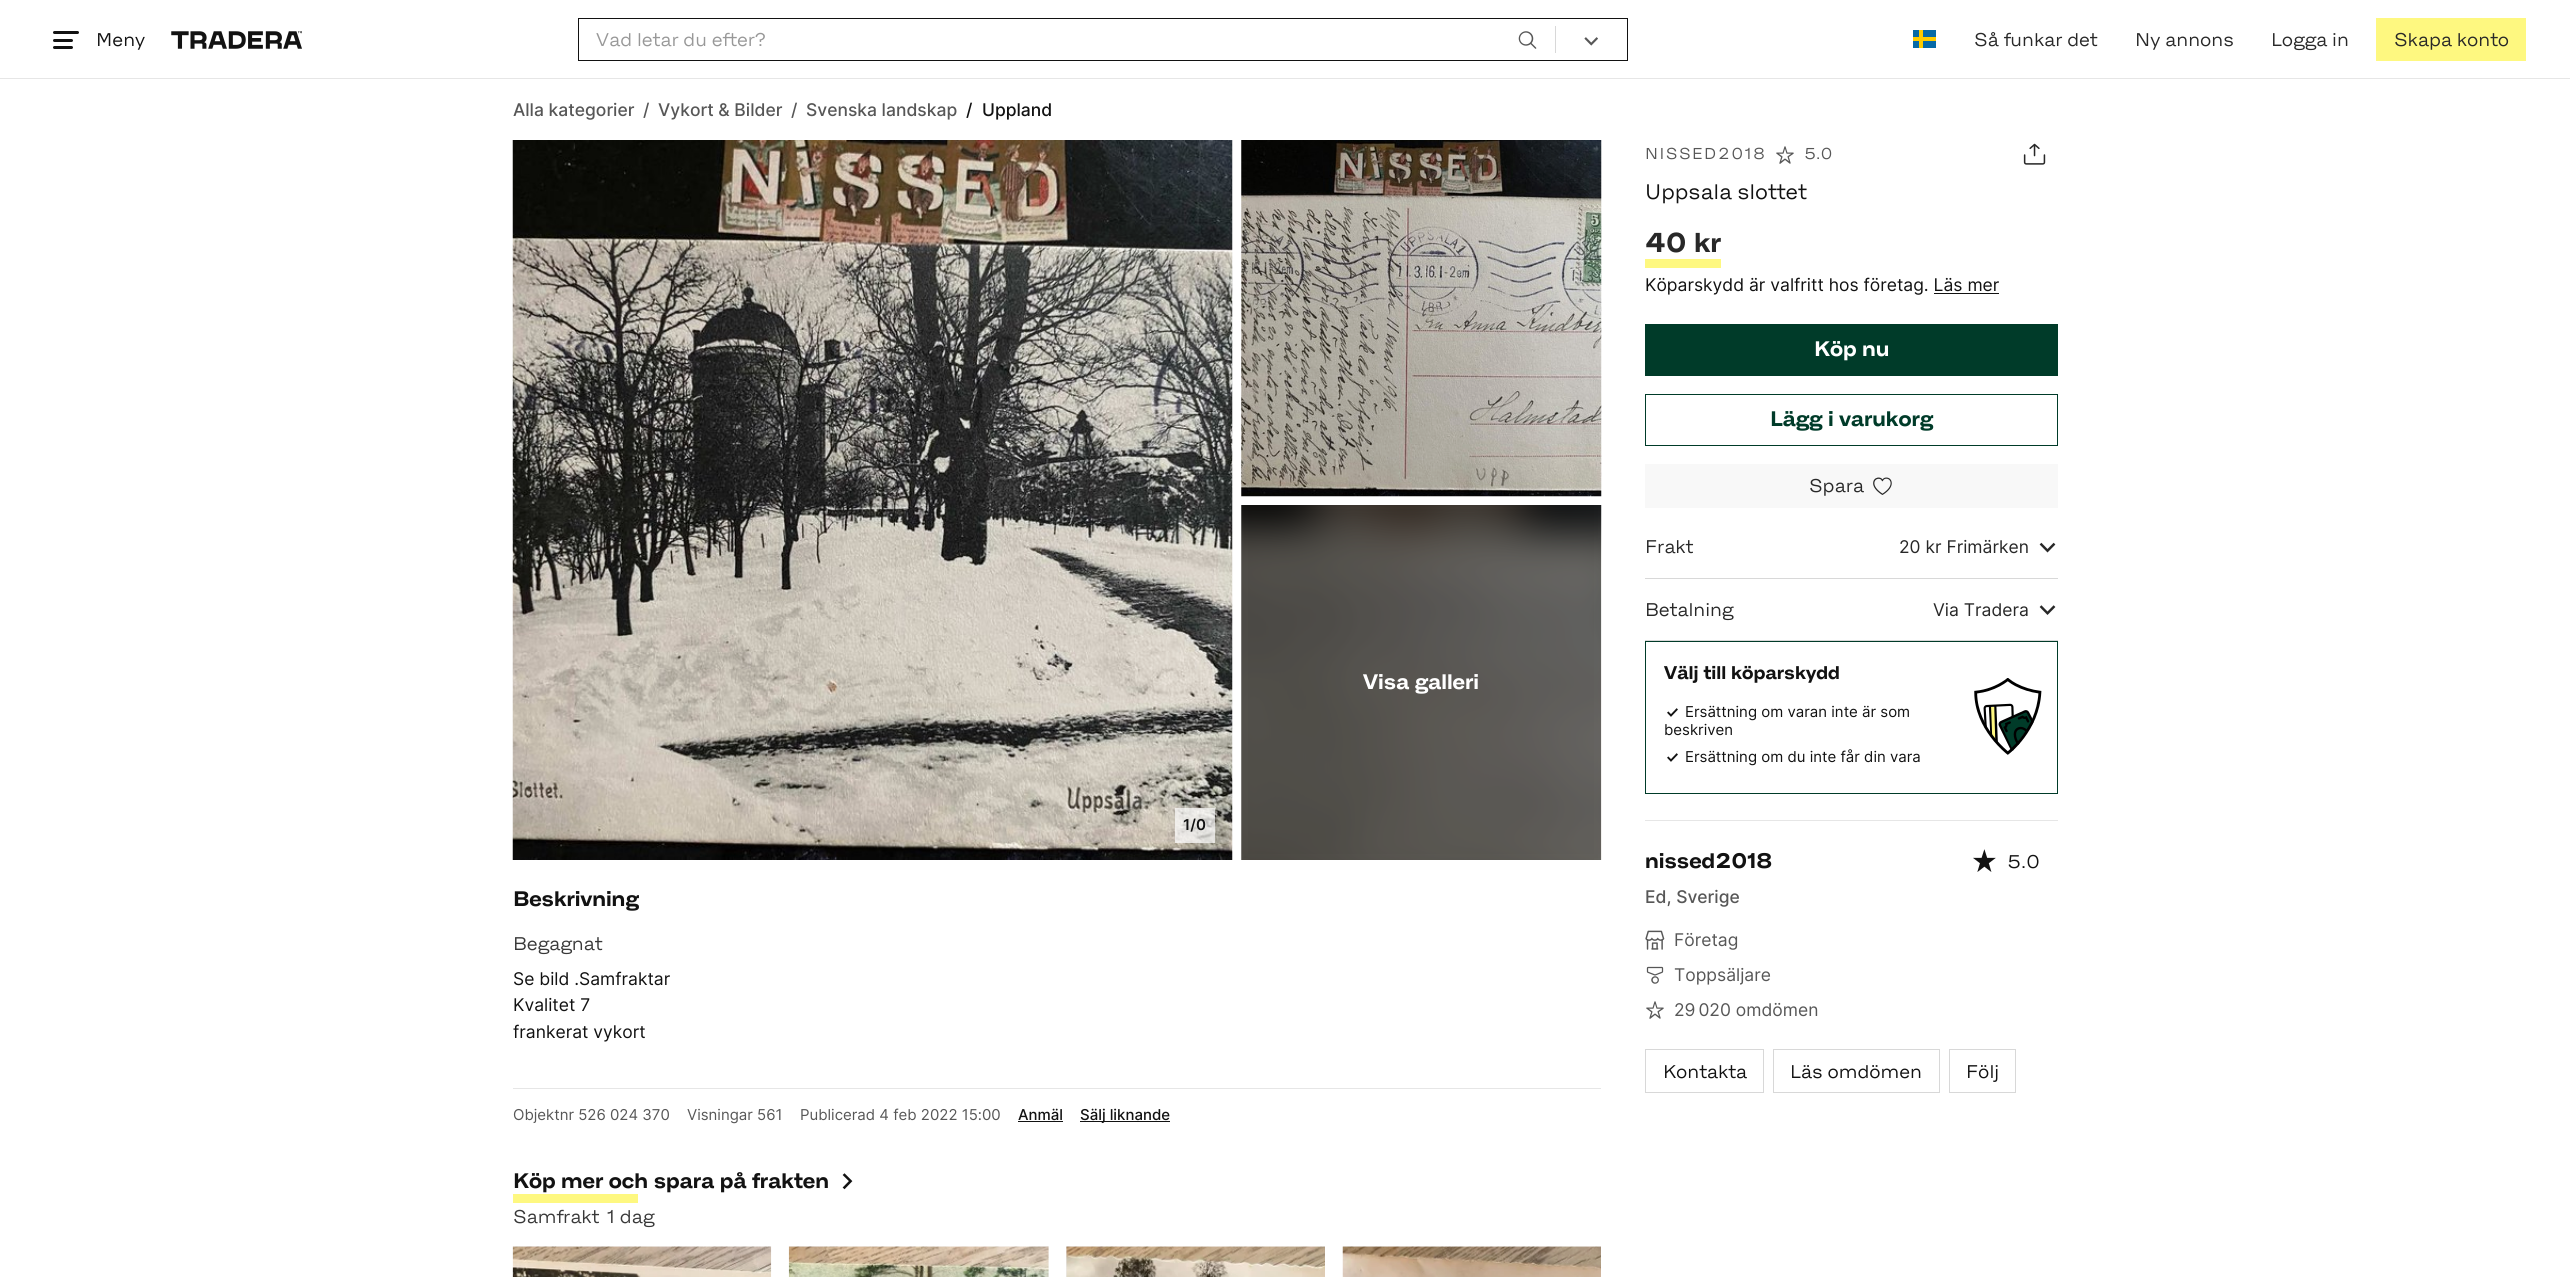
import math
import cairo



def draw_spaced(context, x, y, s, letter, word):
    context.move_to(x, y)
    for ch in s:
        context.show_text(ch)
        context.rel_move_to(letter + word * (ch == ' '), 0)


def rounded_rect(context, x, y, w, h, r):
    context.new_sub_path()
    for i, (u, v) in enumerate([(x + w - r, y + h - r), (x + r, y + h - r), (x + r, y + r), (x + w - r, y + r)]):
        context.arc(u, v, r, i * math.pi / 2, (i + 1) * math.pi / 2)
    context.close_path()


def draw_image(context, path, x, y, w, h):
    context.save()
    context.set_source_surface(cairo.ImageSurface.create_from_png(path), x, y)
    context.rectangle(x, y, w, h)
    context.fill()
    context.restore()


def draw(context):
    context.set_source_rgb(1, 1, 1)
    context.paint()
    context.set_source_rgb(230 / 255, 230 / 255, 230 / 255)
    context.rectangle(0, 78, 2570, 1)
    context.fill()
    context.set_source_rgb(18 / 255, 18 / 255, 18 / 255)
    rounded_rect(context, 53, 39, 20, 3, 1.5)
    context.fill()
    rounded_rect(context, 53, 31, 26, 3, 1.5)
    context.fill()
    rounded_rect(context, 53, 46, 20, 3, 1.5)
    context.fill()
    draw_image(context, "images/1.png", 171, 31, 131, 18)
    context.rectangle(578.5, 18.5, 1049, 42)
    context.set_line_width(1)
    context.stroke()
    draw_image(context, "images/2.png", 1518, 31, 19, 18)
    context.set_source_rgb(216 / 255, 216 / 255, 216 / 255)
    context.rectangle(1555, 26, 1, 27)
    context.fill()
    draw_image(context, "images/3.png", 1584, 37, 14, 9)
    context.set_source_rgb(6 / 255, 106 / 255, 167 / 255)
    context.rectangle(1913, 30, 23, 18)
    context.fill()
    context.set_source_rgb(254 / 255, 204 / 255, 0)
    context.rectangle(1913, 37, 23, 4)
    context.fill()
    context.rectangle(1919, 30, 4, 18)
    context.fill()
    context.set_source_rgb(254 / 255, 248 / 255, 128 / 255)
    context.rectangle(2376, 18, 150, 43)
    context.fill()
    draw_image(context, "images/4.png", 1241, 140, 361, 357)
    draw_image(context, "images/5.png", 1241, 505, 361, 355)
    draw_image(context, "images/6.png", 512, 140, 721, 720)
    context.set_source_rgba(1, 1, 1, 0.7)
    context.rectangle(1175, 808, 40, 35)
    context.fill()
    context.set_source_rgb(230 / 255, 230 / 255, 230 / 255)
    context.rectangle(513, 1088, 1088, 1)
    context.fill()
    context.set_source_rgb(18 / 255, 18 / 255, 18 / 255)
    context.rectangle(1018, 1121, 45, 1)
    context.fill()
    context.rectangle(1080, 1121, 90, 1)
    context.fill()
    draw_image(context, "images/7.png", 842, 1173, 11, 17)
    context.set_source_rgb(254 / 255, 248 / 255, 128 / 255)
    context.rectangle(513, 1194, 125, 9)
    context.fill()
    gradient = cairo.LinearGradient(280, 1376, 1315, 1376)
    gradient.add_color_stop_rgba(0.08, 250 / 255, 250 / 255, 250 / 255, 1)
    gradient.add_color_stop_rgba(0.18, 235 / 255, 236 / 255, 240 / 255, 1)
    gradient.add_color_stop_rgba(0.33, 250 / 255, 250 / 255, 250 / 255, 1)
    context.set_source(gradient)
    context.rectangle(513, 1246, 258, 1)
    context.fill()
    draw_image(context, "images/8.png", 512, 1246, 260, 31)
    gradient = cairo.LinearGradient(555, 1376, 1595, 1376)
    gradient.add_color_stop_rgba(0.08, 250 / 255, 250 / 255, 250 / 255, 1)
    gradient.add_color_stop_rgba(0.18, 235 / 255, 236 / 255, 240 / 255, 1)
    gradient.add_color_stop_rgba(0.33, 250 / 255, 250 / 255, 250 / 255, 1)
    context.set_source(gradient)
    context.rectangle(789, 1246, 260, 31)
    context.fill()
    draw_image(context, "images/9.png", 788, 1246, 261, 31)
    gradient = cairo.LinearGradient(833, 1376, 1868, 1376)
    gradient.add_color_stop_rgba(0.08, 250 / 255, 250 / 255, 250 / 255, 1)
    gradient.add_color_stop_rgba(0.18, 235 / 255, 236 / 255, 240 / 255, 1)
    gradient.add_color_stop_rgba(0.33, 250 / 255, 250 / 255, 250 / 255, 1)
    context.set_source(gradient)
    context.rectangle(1066, 1246, 259, 31)
    context.fill()
    draw_image(context, "images/10.png", 1066, 1246, 259, 31)
    gradient = cairo.LinearGradient(1110, 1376, 2145, 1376)
    gradient.add_color_stop_rgba(0.08, 250 / 255, 250 / 255, 250 / 255, 1)
    gradient.add_color_stop_rgba(0.18, 235 / 255, 236 / 255, 240 / 255, 1)
    gradient.add_color_stop_rgba(0.33, 250 / 255, 250 / 255, 250 / 255, 1)
    context.set_source(gradient)
    context.rectangle(1343, 1246, 258, 1)
    context.fill()
    draw_image(context, "images/11.png", 1342, 1246, 259, 31)
    draw_image(context, "images/12.png", 1776, 146, 18, 18)
    draw_image(context, "images/13.png", 2023, 143, 23, 22)
    context.set_source_rgb(254 / 255, 248 / 255, 128 / 255)
    context.rectangle(1645, 259, 76, 9)
    context.fill()
    context.set_source_rgb(18 / 255, 18 / 255, 18 / 255)
    context.rectangle(1934, 293, 65, 1)
    context.fill()
    context.set_source_rgb(0, 59 / 255, 41 / 255)
    context.rectangle(1645, 324, 413, 52)
    context.fill()
    context.rectangle(1645.5, 394.5, 412, 51)
    context.stroke()
    context.set_source_rgb(248 / 255, 248 / 255, 248 / 255)
    context.rectangle(1645, 464, 413, 44)
    context.fill()
    draw_image(context, "images/14.png", 1873, 477, 19, 18)
    context.set_source_rgb(216 / 255, 216 / 255, 216 / 255)
    context.rectangle(1645, 578, 413, 1)
    context.fill()
    draw_image(context, "images/15.png", 2039, 542, 17, 11)
    context.set_source_rgb(230 / 255, 230 / 255, 230 / 255)
    context.rectangle(1645, 820, 413, 1)
    context.fill()
    context.set_source_rgb(216 / 255, 216 / 255, 216 / 255)
    context.rectangle(1645, 640, 413, 1)
    context.fill()
    draw_image(context, "images/16.png", 2039, 605, 17, 10)
    context.rectangle(1645.5, 641.5, 412, 152)
    context.set_source_rgb(0, 59 / 255, 41 / 255)
    context.stroke()
    draw_image(context, "images/17.png", 1667, 708, 11, 9)
    draw_image(context, "images/17.png", 1667, 753, 11, 9)
    draw_image(context, "images/18.png", 1974, 678, 68, 77)
    draw_image(context, "images/19.png", 1973, 849, 23, 23)
    draw_image(context, "images/20.png", 1645, 930, 20, 20)
    draw_image(context, "images/21.png", 1646, 966, 18, 18)
    draw_image(context, "images/12.png", 1646, 1001, 18, 18)
    context.rectangle(1645.5, 1049.5, 118, 43)
    context.set_source_rgb(216 / 255, 216 / 255, 216 / 255)
    context.stroke()
    context.rectangle(1773.5, 1049.5, 166, 43)
    context.stroke()
    context.rectangle(1949.5, 1049.5, 66, 43)
    context.stroke()
    context.select_font_face("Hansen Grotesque")
    context.set_font_size(17.5)
    context.set_source_rgb(18 / 255, 18 / 255, 18 / 255)
    context.move_to(96, 46)
    context.show_text("Meny")
    context.set_source_rgb(152 / 255, 152 / 255, 152 / 255)
    context.move_to(596, 46)
    context.show_text("Vad letar du efter?")
    context.set_source_rgb(40 / 255, 40 / 255, 40 / 255)
    context.move_to(1974, 46)
    context.show_text("Så funkar det")
    context.move_to(2135, 46)
    context.show_text("Ny annons")
    context.move_to(2271, 46)
    context.show_text("Logga in")
    context.move_to(2394, 46)
    context.show_text("Skapa konto")
    context.select_font_face("Inter Medium")
    context.set_source_rgb(87 / 255, 87 / 255, 87 / 255)
    context.move_to(513, 116)
    context.show_text("Alla kategorier")
    context.move_to(643, 116)
    context.show_text("/")
    context.move_to(658, 116)
    context.show_text("Vykort & Bilder")
    context.move_to(791, 116)
    context.show_text("/")
    context.move_to(806, 116)
    context.show_text("Svenska landskap")
    context.set_source_rgb(18 / 255, 18 / 255, 18 / 255)
    context.move_to(966, 116)
    context.show_text("/")
    context.move_to(982, 116)
    context.show_text("Uppland")
    context.select_font_face("Hansen Grotesque", cairo.FontSlant.NORMAL, cairo.FontWeight.BOLD)
    context.set_font_size(20)
    context.set_source_rgb(1, 1, 1)
    context.move_to(1363, 689)
    context.show_text("Visa galleri")
    context.select_font_face("Inter SemiBold")
    context.set_font_size(15)
    context.set_source_rgb(18 / 255, 18 / 255, 18 / 255)
    context.move_to(1183, 830)
    context.show_text("1/0")
    context.select_font_face("Hansen Grotesque", cairo.FontSlant.NORMAL, cairo.FontWeight.BOLD)
    context.set_font_size(20)
    context.move_to(513, 906)
    context.show_text("Beskrivning")
    context.select_font_face("Hansen Grotesque")
    context.set_font_size(17.5)
    context.set_source_rgb(56 / 255, 56 / 255, 56 / 255)
    context.move_to(513, 950)
    context.show_text("Begagnat")
    context.select_font_face("Inter")
    context.set_source_rgb(18 / 255, 18 / 255, 18 / 255)
    context.move_to(513, 985)
    context.show_text("Se bild .Samfraktar")
    context.move_to(513, 1011)
    context.show_text("Kvalitet 7")
    context.move_to(513, 1038)
    context.show_text("frankerat vykort")
    context.set_font_size(15)
    context.set_source_rgb(87 / 255, 87 / 255, 87 / 255)
    context.move_to(513, 1120)
    context.show_text("Objektnr 526 024 370")
    context.move_to(687, 1120)
    context.show_text("Visningar 561")
    context.move_to(800, 1120)
    context.show_text("Publicerad 4 feb 2022 15:00")
    context.select_font_face("Inter Medium")
    context.set_source_rgb(18 / 255, 18 / 255, 18 / 255)
    context.move_to(1018, 1120)
    context.show_text("Anmäl")
    context.move_to(1080, 1120)
    context.show_text("Sälj liknande")
    context.select_font_face("Hansen Grotesque", cairo.FontSlant.NORMAL, cairo.FontWeight.BOLD)
    context.set_font_size(20)
    context.move_to(513, 1188)
    context.show_text("Köp mer och spara på frakten")
    context.select_font_face("Hansen Grotesque")
    context.set_font_size(17.5)
    context.set_source_rgb(56 / 255, 56 / 255, 56 / 255)
    context.move_to(513, 1223)
    context.show_text("Samfrakt")
    context.move_to(607, 1223)
    context.show_text("1 dag")
    context.set_font_size(15)
    context.set_source_rgb(87 / 255, 87 / 255, 87 / 255)
    draw_spaced(context, 1645, 159, "NISSED2018", 1.5, 0)
    context.move_to(1804, 159)
    context.show_text("5.0")
    context.set_font_size(20)
    context.set_source_rgb(18 / 255, 18 / 255, 18 / 255)
    context.move_to(1645, 199)
    context.show_text("Uppsala slottet")
    context.select_font_face("Hansen Grotesque", cairo.FontSlant.NORMAL, cairo.FontWeight.BOLD)
    context.set_font_size(26)
    context.set_source_rgb(40 / 255, 40 / 255, 40 / 255)
    context.move_to(1645, 252)
    context.show_text("40 kr")
    context.select_font_face("Inter")
    context.set_font_size(17.5)
    context.set_source_rgb(18 / 255, 18 / 255, 18 / 255)
    context.move_to(1645, 291)
    context.show_text("Köparskydd är valfritt hos företag. Läs mer")
    context.select_font_face("Hansen Grotesque", cairo.FontSlant.NORMAL, cairo.FontWeight.BOLD)
    context.set_font_size(20)
    context.set_source_rgb(1, 1, 1)
    context.move_to(1814, 356)
    context.show_text("Köp nu")
    context.set_source_rgb(0, 59 / 255, 41 / 255)
    context.move_to(1770, 426)
    context.show_text("Lägg i varukorg")
    context.select_font_face("Hansen Grotesque")
    context.set_font_size(17.5)
    context.set_source_rgb(40 / 255, 40 / 255, 40 / 255)
    context.move_to(1809, 492)
    context.show_text("Spara")
    context.move_to(1645, 553)
    context.show_text("Frakt")
    context.select_font_face("Inter")
    context.move_to(1899, 553)
    context.show_text("20 kr Frimärken")
    context.select_font_face("Hansen Grotesque")
    context.move_to(1645, 616)
    context.show_text("Betalning")
    context.select_font_face("Inter")
    context.move_to(1933, 616)
    context.show_text("Via Tradera")
    context.select_font_face("Hansen Grotesque", cairo.FontSlant.NORMAL, cairo.FontWeight.BOLD)
    context.set_source_rgb(18 / 255, 18 / 255, 18 / 255)
    context.move_to(1664, 679)
    context.show_text("Välj till köparskydd")
    context.select_font_face("Inter")
    context.set_font_size(15)
    context.move_to(1685, 717)
    context.show_text("Ersättning om varan inte är som")
    context.move_to(1664, 735)
    context.show_text("beskriven")
    context.move_to(1685, 762)
    context.show_text("Ersättning om du inte får din vara")
    context.select_font_face("Hansen Grotesque", cairo.FontSlant.NORMAL, cairo.FontWeight.BOLD)
    context.set_font_size(20)
    context.move_to(1645, 868)
    context.show_text("nissed2018")
    context.select_font_face("Inter Medium")
    context.set_font_size(17.5)
    context.set_source_rgb(87 / 255, 87 / 255, 87 / 255)
    context.move_to(1645, 903)
    context.show_text("Ed, Sverige")
    context.select_font_face("Hansen Grotesque")
    context.set_source_rgb(18 / 255, 18 / 255, 18 / 255)
    context.move_to(2007, 868)
    context.show_text("5.0")
    context.select_font_face("Inter")
    context.set_source_rgb(87 / 255, 87 / 255, 87 / 255)
    context.move_to(1674, 946)
    context.show_text("Företag")
    context.move_to(1674, 981)
    context.show_text("Toppsäljare")
    context.move_to(1674, 1016)
    context.show_text("29 020 omdömen")
    context.select_font_face("Hansen Grotesque")
    context.set_source_rgb(18 / 255, 18 / 255, 18 / 255)
    context.move_to(1663, 1078)
    context.show_text("Kontakta")
    context.move_to(1790, 1078)
    context.show_text("Läs omdömen")
    context.move_to(1966, 1078)
    context.show_text("Följ")


surface = cairo.ImageSurface(cairo.Format.RGB24, 2570, 1277)
context = cairo.Context(surface)
options = cairo.FontOptions()
options.set_hint_metrics(cairo.HintMetrics.OFF)
options.set_hint_style(cairo.HintStyle.NONE)
context.set_font_options(options)
context.set_miter_limit(4)
draw(context)
surface.write_to_png("out.png")
